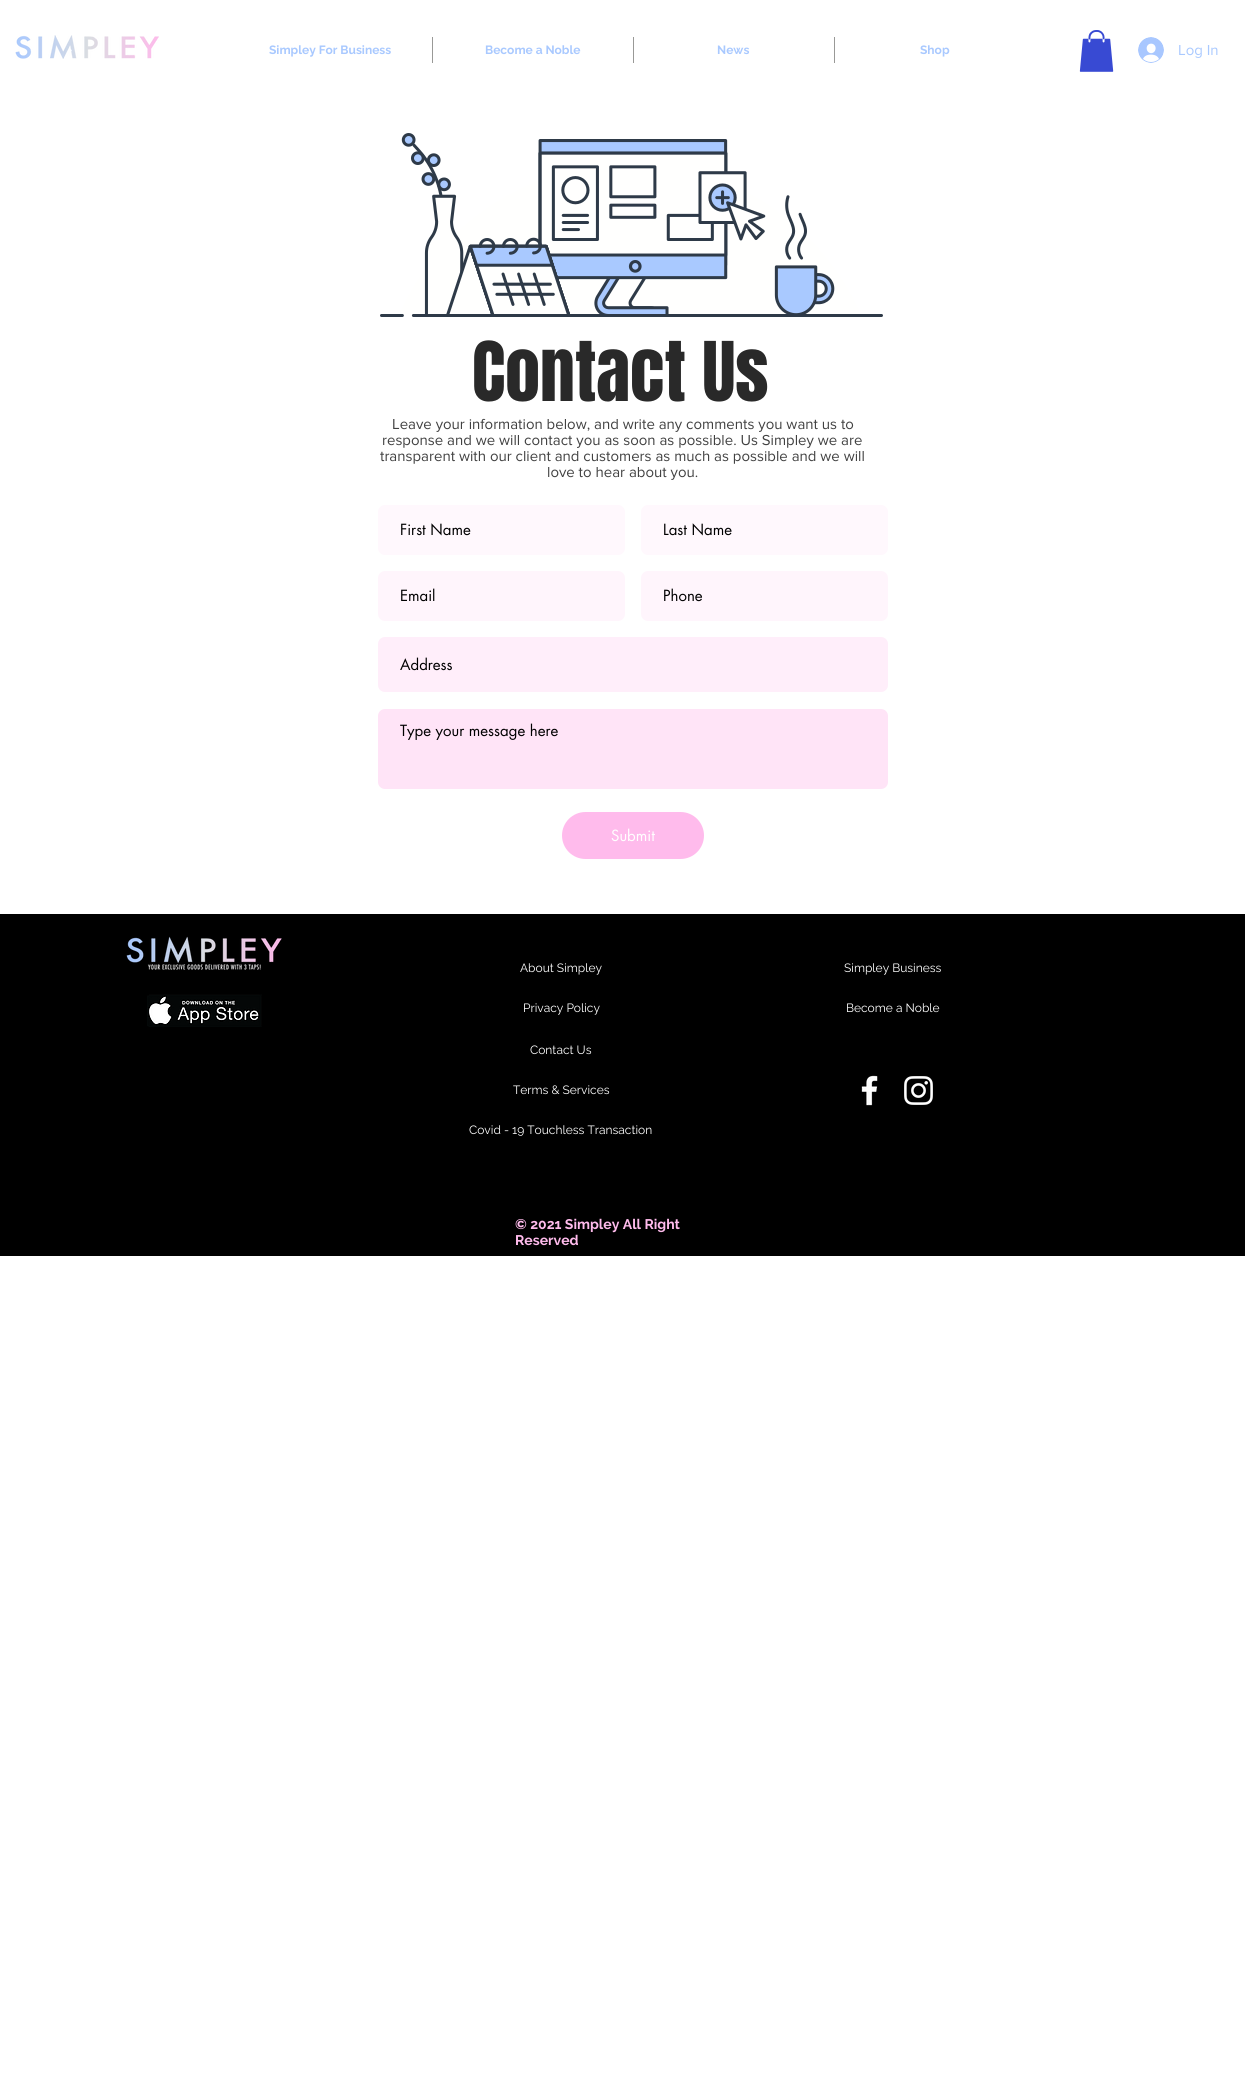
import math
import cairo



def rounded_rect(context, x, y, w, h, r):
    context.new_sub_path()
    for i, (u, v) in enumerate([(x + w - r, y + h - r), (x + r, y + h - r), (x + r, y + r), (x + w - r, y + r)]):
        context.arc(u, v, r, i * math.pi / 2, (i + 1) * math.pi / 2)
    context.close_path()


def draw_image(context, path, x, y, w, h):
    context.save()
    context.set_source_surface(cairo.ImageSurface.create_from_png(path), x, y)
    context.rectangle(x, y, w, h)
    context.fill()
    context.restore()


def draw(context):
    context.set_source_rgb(1, 1, 1)
    context.paint()
    draw_image(context, "images/1.png", 15, 35, 144, 24)
    context.set_source_rgb(153 / 255, 153 / 255, 151 / 255)
    context.rectangle(432, 37, 1, 26)
    context.fill()
    context.rectangle(633, 37, 1, 26)
    context.fill()
    context.rectangle(834, 37, 1, 26)
    context.fill()
    draw_image(context, "images/2.png", 1079, 30, 35, 42)
    draw_image(context, "images/3.png", 1138, 37, 26, 26)
    draw_image(context, "images/4.png", 380, 133, 503, 184)
    context.set_source_rgb(1, 248 / 255, 253 / 255)
    rounded_rect(context, 378, 505, 247, 50, 7)
    context.fill()
    rounded_rect(context, 641, 505, 247, 50, 7)
    context.fill()
    context.set_source_rgb(1, 245 / 255, 252 / 255)
    rounded_rect(context, 378, 571, 247, 50, 7)
    context.fill()
    rounded_rect(context, 641, 571, 247, 50, 7)
    context.fill()
    context.set_source_rgb(1, 238 / 255, 250 / 255)
    rounded_rect(context, 378, 637, 510, 55, 7)
    context.fill()
    context.set_source_rgb(1, 228 / 255, 247 / 255)
    rounded_rect(context, 378, 709, 510, 80, 7)
    context.fill()
    context.set_source_rgb(1, 187 / 255, 236 / 255)
    rounded_rect(context, 562, 812, 142, 47, 23.5)
    context.fill()
    context.set_source_rgb(0, 0, 0)
    context.rectangle(0, 914, 1245, 342)
    context.fill()
    draw_image(context, "images/5.png", 126, 936, 156, 34)
    draw_image(context, "images/6.png", 147, 994, 115, 33)
    draw_image(context, "images/7.png", 861, 1075, 17, 31)
    draw_image(context, "images/8.png", 904, 1076, 29, 29)
    context.select_font_face("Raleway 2", cairo.FontSlant.NORMAL, cairo.FontWeight.BOLD)
    context.set_font_size(12)
    context.set_source_rgb(169 / 255, 201 / 255, 1)
    context.move_to(269, 54)
    context.show_text("Simpley For Business")
    context.move_to(485, 54)
    context.show_text("Become a Noble")
    context.move_to(717, 54)
    context.show_text("News")
    context.move_to(920, 54)
    context.show_text("Shop")
    context.select_font_face("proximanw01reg")
    context.set_font_size(15)
    context.move_to(1178, 55)
    context.show_text("Log In")
    context.select_font_face("Anton")
    context.set_font_size(70)
    context.set_source_rgb(41 / 255, 41 / 255, 41 / 255)
    context.move_to(472, 401)
    context.show_text("Contact Us")
    context.select_font_face("proximanw01reg")
    context.set_font_size(15)
    context.set_source_rgb(65 / 255, 65 / 255, 65 / 255)
    context.move_to(392, 429)
    context.show_text("Leave your information below, and write any comments you want us to")
    context.move_to(382, 445)
    context.show_text("response and we will contact you as soon as possible. Us Simpley we are")
    context.move_to(380, 461)
    context.show_text("transparent with our client and customers as much as possible and we will")
    context.move_to(547, 477)
    context.show_text("love to hear about you.")
    context.select_font_face("futura")
    context.set_source_rgb(0, 0, 0)
    context.move_to(400, 535)
    context.show_text("First Name")
    context.move_to(663, 535)
    context.show_text("Last Name")
    context.move_to(400, 601)
    context.show_text("Email")
    context.move_to(663, 601)
    context.show_text("Phone")
    context.move_to(400, 670)
    context.show_text("Address")
    context.move_to(400, 736)
    context.show_text("Type your message here")
    context.set_source_rgb(1, 1, 1)
    context.move_to(611, 841)
    context.show_text("Submit")
    context.select_font_face("Raleway")
    context.set_font_size(12)
    context.move_to(520, 972)
    context.show_text("About Simpley")
    context.move_to(844, 972)
    context.show_text("Simpley Business")
    context.move_to(523, 1012)
    context.show_text("Privacy Policy")
    context.move_to(846, 1012)
    context.show_text("Become a Noble")
    context.move_to(530, 1054)
    context.show_text("Contact Us")
    context.move_to(513, 1094)
    context.show_text("Terms & Services")
    context.move_to(469, 1134)
    context.show_text("Covid - 19 Touchless Transaction")
    context.select_font_face("Raleway", cairo.FontSlant.NORMAL, cairo.FontWeight.BOLD)
    context.set_font_size(14)
    context.set_source_rgb(1, 187 / 255, 236 / 255)
    context.move_to(515, 1229)
    context.show_text("© 2021 Simpley All Right")
    context.move_to(515, 1245)
    context.show_text("Reserved")


surface = cairo.ImageSurface(cairo.Format.RGB24, 1245, 2083)
context = cairo.Context(surface)
options = cairo.FontOptions()
options.set_hint_metrics(cairo.HintMetrics.OFF)
options.set_hint_style(cairo.HintStyle.NONE)
context.set_font_options(options)
context.set_miter_limit(4)
draw(context)
surface.write_to_png("out.png")
